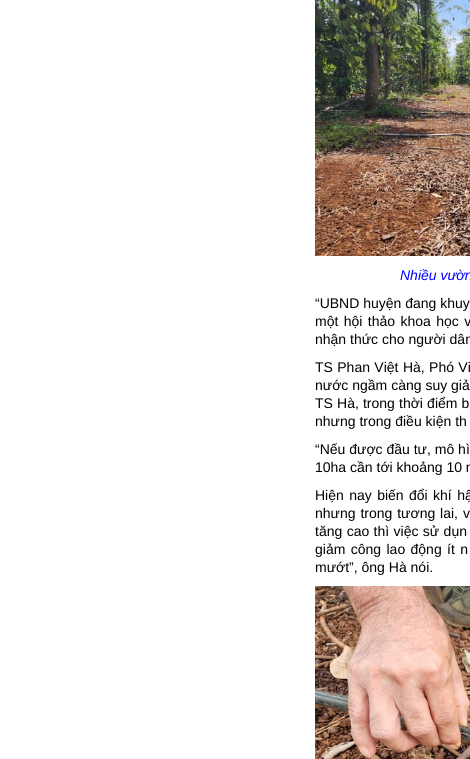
import math
import cairo



def draw_spaced(context, x, y, s, letter, word):
    context.move_to(x, y)
    for ch in s:
        context.show_text(ch)
        context.rel_move_to(letter + word * (ch == ' '), 0)


def draw_image(context, path, x, y, w, h):
    context.save()
    context.set_source_surface(cairo.ImageSurface.create_from_png(path), x, y)
    context.rectangle(x, y, w, h)
    context.fill()
    context.restore()


def draw(context):
    context.set_source_rgb(1, 1, 1)
    context.paint()
    draw_image(context, "images/1.png", 315, 0, 155, 256)
    draw_image(context, "images/2.png", 315, 586, 155, 173)
    context.select_font_face("Liberation Sans", cairo.FontSlant.ITALIC)
    context.set_font_size(14)
    context.set_source_rgb(0, 0, 1)
    context.move_to(400, 280)
    context.show_text("Nhiều vườn")
    context.select_font_face("Liberation Sans")
    context.set_source_rgb(0, 0, 0)
    context.move_to(315, 308)
    context.show_text("“UBND huyện đang khuy")
    draw_spaced(context, 315, 326, "một hội thảo khoa học v", 0, 1.5)
    context.move_to(315, 344)
    context.show_text("nhận thức cho người dân")
    draw_spaced(context, 315, 372, "TS Phan Việt Hà, Phó Vi", 0, 0.5)
    context.move_to(315, 390)
    context.show_text("nước ngầm càng suy giả")
    draw_spaced(context, 315, 408, "TS Hà, trong thời điểm b", 0, 0.25)
    context.move_to(315, 426)
    context.show_text("nhưng trong điều kiện th")
    context.move_to(315, 454)
    context.show_text("“Nếu được đầu tư, mô hì")
    context.move_to(315, 472)
    context.show_text("10ha cần tới khoảng 10 n")
    draw_spaced(context, 315, 500, "Hiện nay biến đổi khí hậ", 0, 1.5)
    draw_spaced(context, 315, 518, "nhưng trong tương lai, v", 0, 1)
    draw_spaced(context, 315, 536, "tăng cao thì việc sử dụn", 0, 0.5)
    draw_spaced(context, 315, 554, "giảm công lao động ít n", 0, 1.5)
    context.move_to(315, 572)
    context.show_text("mướt”, ông Hà nói.")


surface = cairo.ImageSurface(cairo.Format.RGB24, 470, 759)
context = cairo.Context(surface)
options = cairo.FontOptions()
options.set_hint_metrics(cairo.HintMetrics.OFF)
options.set_hint_style(cairo.HintStyle.NONE)
context.set_font_options(options)
context.set_miter_limit(4)
draw(context)
surface.write_to_png("out.png")
